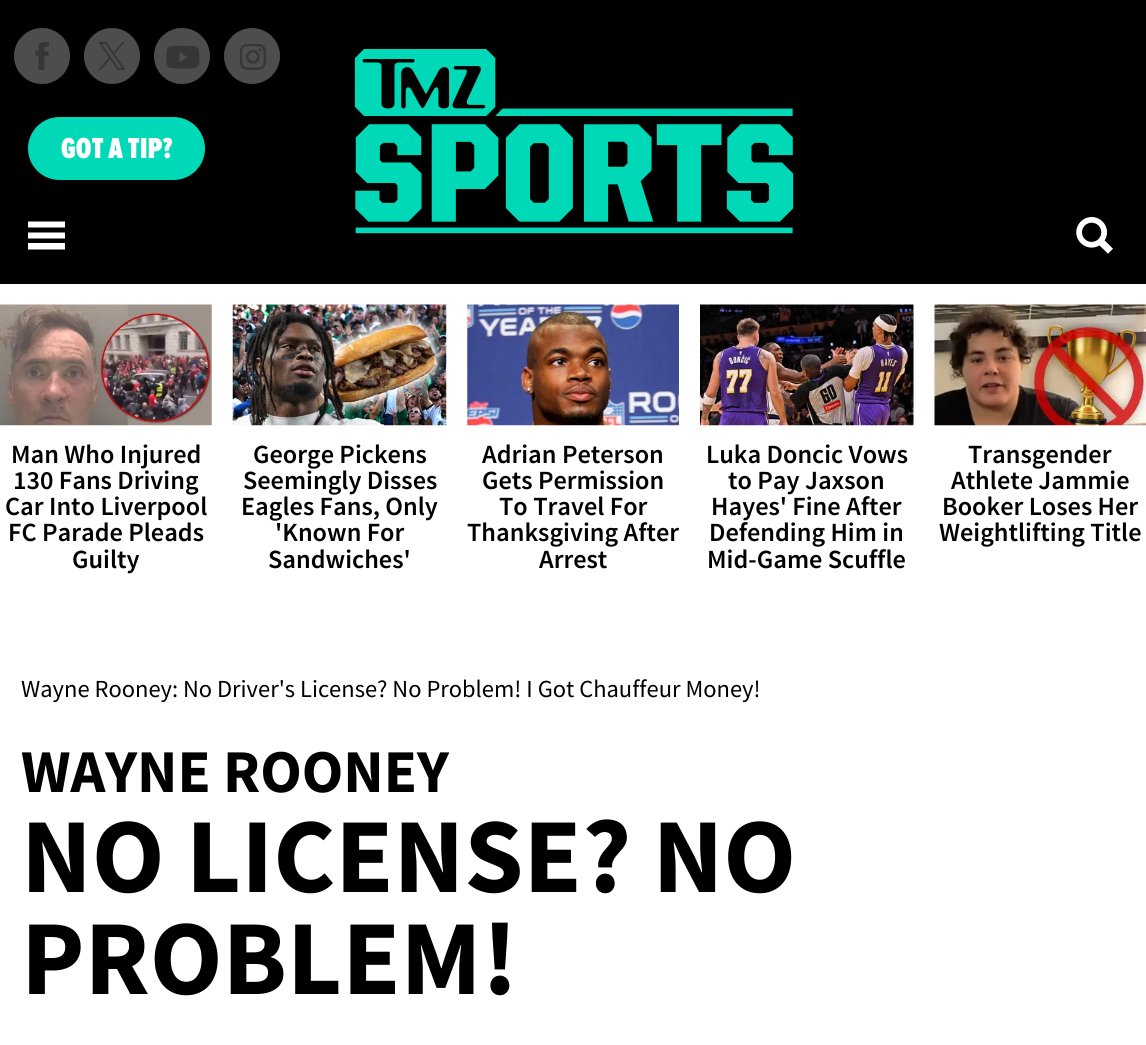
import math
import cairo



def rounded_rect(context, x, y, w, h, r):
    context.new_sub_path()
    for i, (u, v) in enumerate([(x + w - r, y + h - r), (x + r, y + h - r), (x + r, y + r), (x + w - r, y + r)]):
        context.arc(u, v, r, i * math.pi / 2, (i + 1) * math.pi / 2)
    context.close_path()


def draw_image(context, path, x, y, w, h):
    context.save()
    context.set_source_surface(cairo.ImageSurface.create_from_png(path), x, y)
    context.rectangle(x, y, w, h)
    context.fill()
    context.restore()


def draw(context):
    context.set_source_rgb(1, 1, 1)
    context.paint()
    context.set_source_rgb(0, 0, 0)
    context.rectangle(0, 0, 1146, 284)
    context.fill()
    context.set_source_rgb(77 / 255, 77 / 255, 77 / 255)
    context.arc(42, 56, 28, 0, 2 * math.pi)
    context.fill()
    draw_image(context, "images/1.png", 35, 42, 14, 28)
    context.arc(112, 56, 28, 0, 2 * math.pi)
    context.fill()
    draw_image(context, "images/2.png", 98, 42, 28, 28)
    context.arc(182, 56, 28, 0, 2 * math.pi)
    context.fill()
    draw_image(context, "images/3.png", 166, 45, 34, 24)
    context.arc(252, 56, 28, 0, 2 * math.pi)
    context.fill()
    draw_image(context, "images/4.png", 240, 44, 26, 26)
    draw_image(context, "images/5.png", 354, 49, 440, 185)
    context.set_source_rgb(0, 217 / 255, 183 / 255)
    rounded_rect(context, 28, 117, 177, 63, 31.5)
    context.fill()
    context.set_source_rgb(1, 1, 1)
    context.new_path()
    context.move_to(65, 227.5)
    context.line_to(28, 227.5)
    context.line_to(28, 221.5)
    context.line_to(65, 221.5)
    context.close_path()
    context.move_to(65, 232.5)
    context.line_to(28, 232.5)
    context.line_to(28, 238.5)
    context.line_to(65, 238.5)
    context.close_path()
    context.move_to(65, 243)
    context.line_to(28, 243)
    context.line_to(28, 249.5)
    context.line_to(65, 249.5)
    context.close_path()
    context.fill()
    draw_image(context, "images/6.png", 1076, 217, 37, 37)
    draw_image(context, "images/7.png", 0, 304, 212, 122)
    draw_image(context, "images/8.png", 232, 304, 215, 122)
    draw_image(context, "images/9.png", 467, 304, 212, 122)
    draw_image(context, "images/10.png", 700, 304, 214, 122)
    draw_image(context, "images/11.png", 934, 304, 212, 122)
    context.select_font_face("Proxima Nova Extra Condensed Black")
    context.set_font_size(30)
    context.move_to(61, 158)
    context.show_text("GOT A TIP?")
    context.select_font_face("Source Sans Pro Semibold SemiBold")
    context.set_font_size(26.25)
    context.set_source_rgb(0, 0, 0)
    context.move_to(11, 463)
    context.show_text("Man Who Injured")
    context.move_to(13, 489)
    context.show_text("130 Fans Driving")
    context.move_to(5, 515)
    context.show_text("Car Into Liverpool")
    context.move_to(8, 541)
    context.show_text("FC Parade Pleads")
    context.move_to(72, 568)
    context.show_text("Guilty")
    context.move_to(253, 463)
    context.show_text("George Pickens")
    context.move_to(243, 489)
    context.show_text("Seemingly Disses")
    context.move_to(241, 515)
    context.show_text("Eagles Fans, Only")
    context.move_to(275, 541)
    context.show_text("'Known For")
    context.move_to(268, 568)
    context.show_text("Sandwiches'")
    context.move_to(482, 463)
    context.show_text("Adrian Peterson")
    context.move_to(482, 489)
    context.show_text("Gets Permission")
    context.move_to(499, 515)
    context.show_text("To Travel For")
    context.move_to(467, 541)
    context.show_text("Thanksgiving After")
    context.move_to(539, 568)
    context.show_text("Arrest")
    context.move_to(706, 463)
    context.show_text("Luka Doncic Vows")
    context.move_to(728, 489)
    context.show_text("to Pay Jaxson")
    context.move_to(711, 515)
    context.show_text("Hayes' Fine After")
    context.move_to(709, 541)
    context.show_text("Defending Him in")
    context.move_to(707, 568)
    context.show_text("Mid-Game Scuffle")
    context.move_to(968, 463)
    context.show_text("Transgender")
    context.move_to(951, 489)
    context.show_text("Athlete Jammie")
    context.move_to(942, 515)
    context.show_text("Booker Loses Her")
    context.move_to(939, 541)
    context.show_text("Weightlifting Title")
    context.select_font_face("Source Sans Pro")
    context.set_font_size(24.5)
    context.move_to(21, 697)
    context.show_text("Wayne Rooney: No Driver's License? No Problem! I Got Chauffeur Money!")
    context.select_font_face("Source Sans Pro", cairo.FontSlant.NORMAL, cairo.FontWeight.BOLD)
    context.set_font_size(60.75)
    context.move_to(21, 792)
    context.show_text("WAYNE ROONEY")
    context.set_font_size(106.5)
    context.move_to(21, 892)
    context.show_text("NO LICENSE? NO")
    context.move_to(21, 994)
    context.show_text("PROBLEM!")


surface = cairo.ImageSurface(cairo.Format.RGB24, 1146, 1045)
context = cairo.Context(surface)
options = cairo.FontOptions()
options.set_hint_metrics(cairo.HintMetrics.OFF)
options.set_hint_style(cairo.HintStyle.NONE)
context.set_font_options(options)
context.set_miter_limit(4)
draw(context)
surface.write_to_png("out.png")
